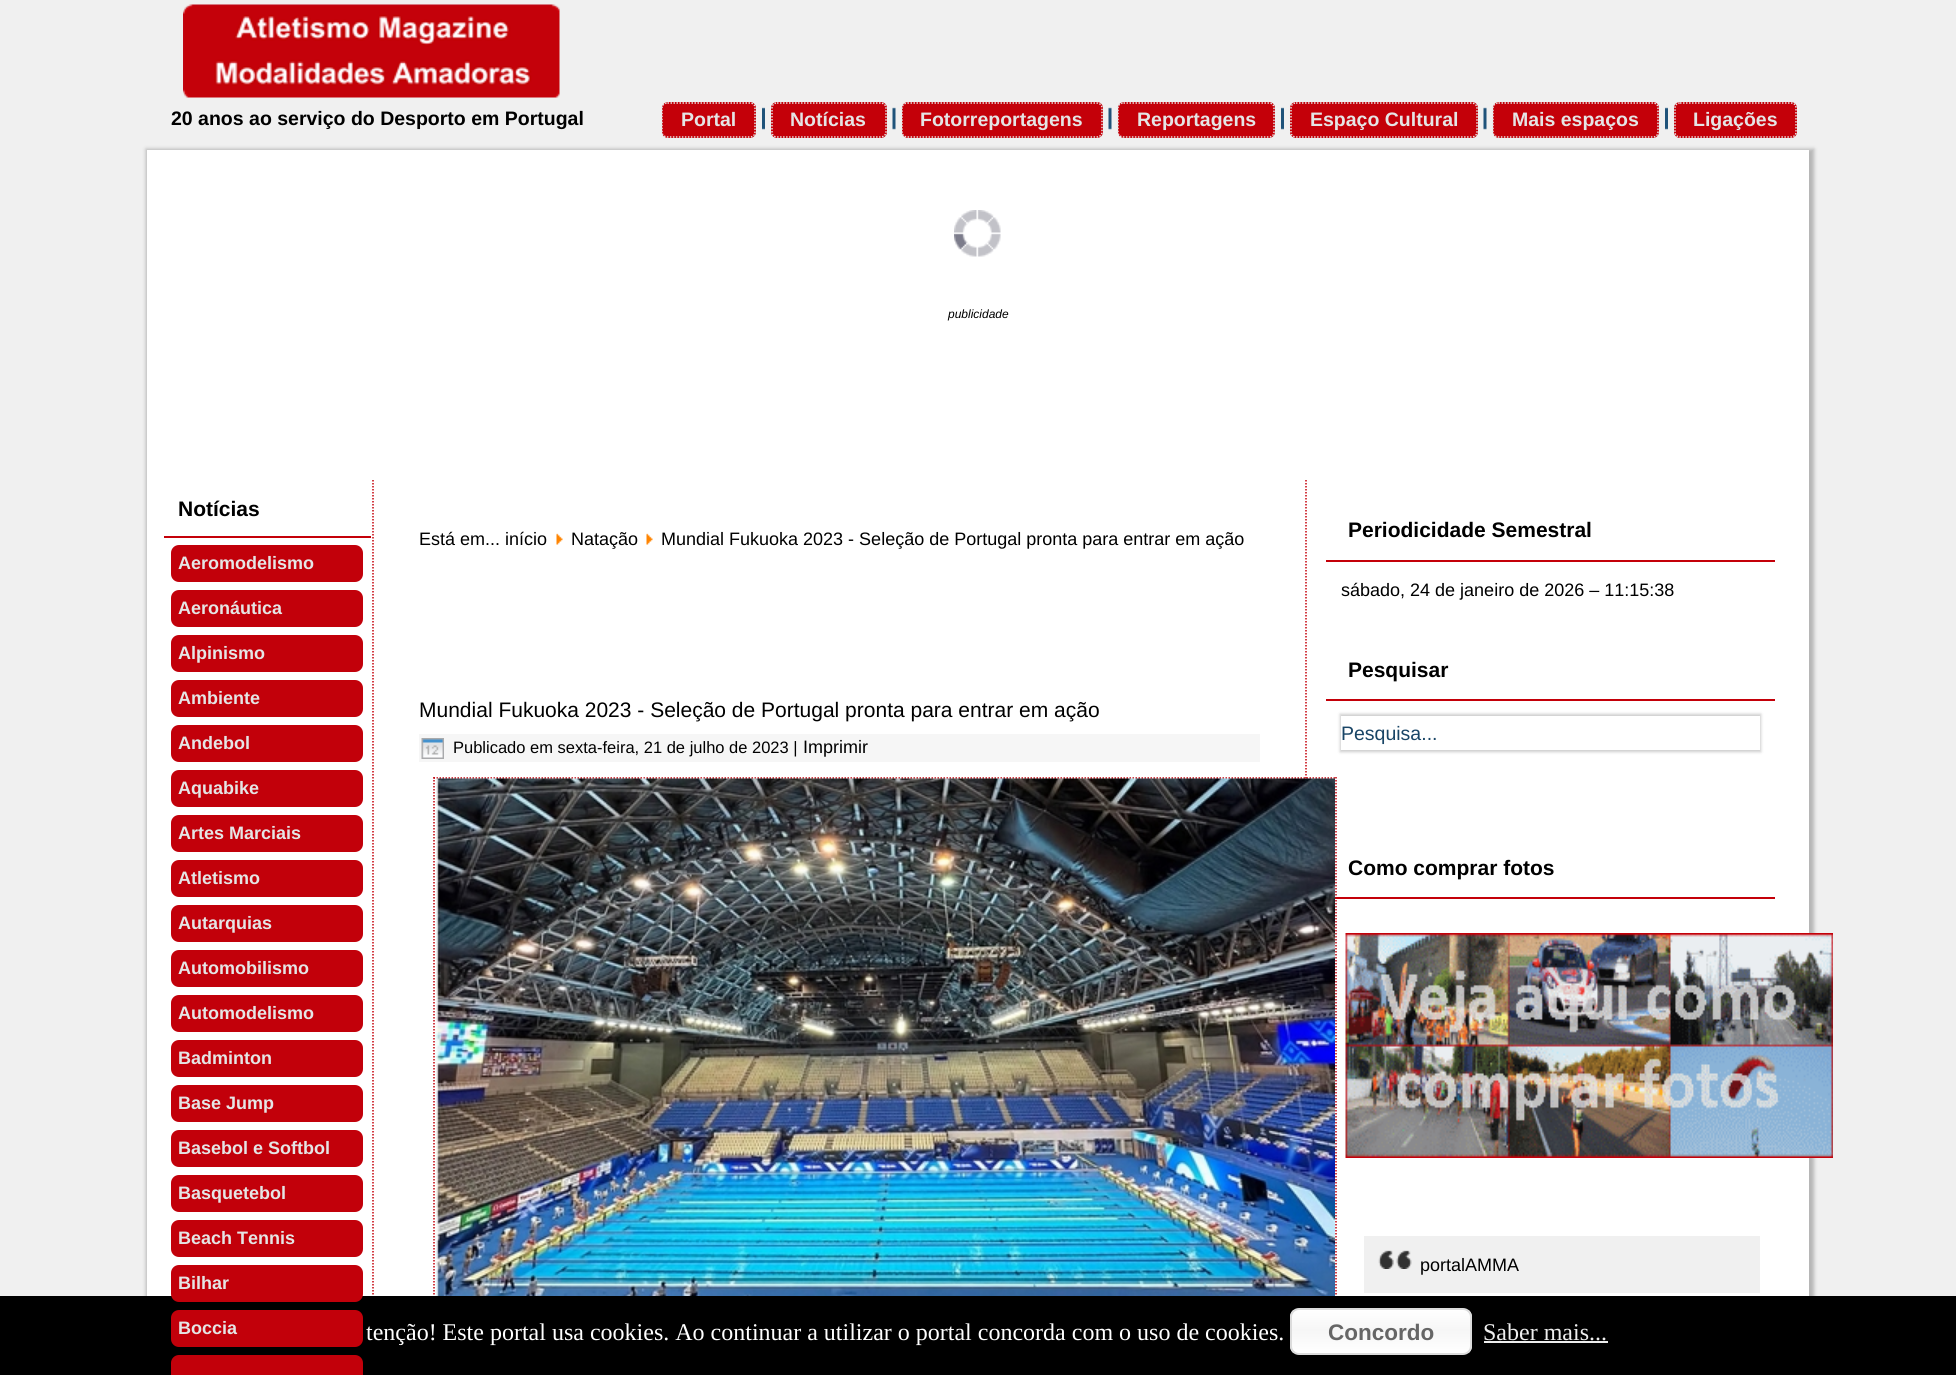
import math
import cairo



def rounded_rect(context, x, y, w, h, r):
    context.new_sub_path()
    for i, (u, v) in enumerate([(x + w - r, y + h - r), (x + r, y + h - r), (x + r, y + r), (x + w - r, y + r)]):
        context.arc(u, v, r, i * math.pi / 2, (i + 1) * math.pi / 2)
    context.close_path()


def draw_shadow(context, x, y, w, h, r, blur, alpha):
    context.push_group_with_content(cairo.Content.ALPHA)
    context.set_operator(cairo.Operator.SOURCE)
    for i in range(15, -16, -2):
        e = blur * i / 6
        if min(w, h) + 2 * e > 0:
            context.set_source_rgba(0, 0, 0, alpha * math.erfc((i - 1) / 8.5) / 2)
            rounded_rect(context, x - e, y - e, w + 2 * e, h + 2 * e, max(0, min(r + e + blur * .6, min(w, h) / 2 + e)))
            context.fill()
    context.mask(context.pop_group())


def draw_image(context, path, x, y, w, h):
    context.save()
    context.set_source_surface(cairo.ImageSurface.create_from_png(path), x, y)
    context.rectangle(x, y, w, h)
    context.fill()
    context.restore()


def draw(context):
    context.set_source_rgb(240 / 255, 240 / 255, 240 / 255)
    context.paint()
    draw_image(context, "images/1.png", 183, 4, 377, 94)
    context.set_source_rgb(196 / 255, 0, 9 / 255)
    rounded_rect(context, 662, 102, 94, 36, 6)
    context.fill()
    context.new_path()
    context.move_to(667.5, 103)
    context.line_to(750, 103)
    context.curve_to(753, 103, 755, 105, 755, 108)
    context.line_to(755, 132)
    context.curve_to(755, 135, 753, 137, 750, 137)
    context.line_to(667.5, 137)
    context.curve_to(664.5, 137, 662, 135, 662, 132)
    context.line_to(662, 108)
    context.curve_to(662, 105, 664.5, 103, 667.5, 103)
    context.close_path()
    context.set_source_rgb(230 / 255, 230 / 255, 230 / 255)
    context.set_line_width(1.5)
    context.set_dash([1.5, 1.5])
    context.stroke()
    draw_image(context, "images/2.png", 762, 107, 3, 23)
    context.set_source_rgb(196 / 255, 0, 9 / 255)
    rounded_rect(context, 771, 102, 116, 36, 6)
    context.fill()
    context.new_path()
    context.move_to(777, 103)
    context.line_to(880.5, 103)
    context.curve_to(883.5, 103, 886, 105, 886, 108)
    context.line_to(886, 132)
    context.curve_to(886, 135, 883.5, 137, 880.5, 137)
    context.line_to(777, 137)
    context.curve_to(774, 137, 772, 135, 772, 132)
    context.line_to(772, 108)
    context.curve_to(772, 105, 774, 103, 777, 103)
    context.close_path()
    context.set_source_rgb(230 / 255, 230 / 255, 230 / 255)
    context.stroke()
    draw_image(context, "images/3.png", 892, 107, 4, 23)
    context.set_source_rgb(196 / 255, 0, 9 / 255)
    rounded_rect(context, 902, 102, 201, 36, 6)
    context.fill()
    context.new_path()
    context.move_to(907.5, 103)
    context.line_to(1096.5, 103)
    context.curve_to(1099.5, 103, 1102, 105, 1102, 108)
    context.line_to(1102, 132)
    context.curve_to(1102, 135, 1099.5, 137, 1096.5, 137)
    context.line_to(907.5, 137)
    context.curve_to(904.5, 137, 902, 135, 902, 132)
    context.line_to(902, 108)
    context.curve_to(902, 105, 904.5, 103, 907.5, 103)
    context.close_path()
    context.set_source_rgb(230 / 255, 230 / 255, 230 / 255)
    context.stroke()
    draw_image(context, "images/3.png", 1108, 107, 4, 23)
    context.set_source_rgb(196 / 255, 0, 9 / 255)
    rounded_rect(context, 1118, 102, 157, 36, 6)
    context.fill()
    context.new_path()
    context.move_to(1123.5, 103)
    context.line_to(1269, 103)
    context.curve_to(1272, 103, 1274, 105, 1274, 108)
    context.line_to(1274, 132)
    context.curve_to(1274, 135, 1272, 137, 1269, 137)
    context.line_to(1123.5, 137)
    context.curve_to(1120.5, 137, 1118, 135, 1118, 132)
    context.line_to(1118, 108)
    context.curve_to(1118, 105, 1120.5, 103, 1123.5, 103)
    context.close_path()
    context.set_source_rgb(230 / 255, 230 / 255, 230 / 255)
    context.stroke()
    draw_image(context, "images/2.png", 1281, 107, 3, 23)
    context.set_source_rgb(196 / 255, 0, 9 / 255)
    rounded_rect(context, 1290, 102, 188, 36, 6)
    context.fill()
    context.new_path()
    context.move_to(1296, 103)
    context.line_to(1471.5, 103)
    context.curve_to(1474.5, 103, 1477, 105, 1477, 108)
    context.line_to(1477, 132)
    context.curve_to(1477, 135, 1474.5, 137, 1471.5, 137)
    context.line_to(1296, 137)
    context.curve_to(1293, 137, 1291, 135, 1291, 132)
    context.line_to(1291, 108)
    context.curve_to(1291, 105, 1293, 103, 1296, 103)
    context.close_path()
    context.set_source_rgb(230 / 255, 230 / 255, 230 / 255)
    context.stroke()
    draw_image(context, "images/3.png", 1483, 107, 4, 23)
    context.set_source_rgb(196 / 255, 0, 9 / 255)
    rounded_rect(context, 1493, 102, 166, 36, 6)
    context.fill()
    context.new_path()
    context.move_to(1498.5, 103)
    context.line_to(1653, 103)
    context.curve_to(1656, 103, 1658, 105, 1658, 108)
    context.line_to(1658, 132)
    context.curve_to(1658, 135, 1656, 137, 1653, 137)
    context.line_to(1498.5, 137)
    context.curve_to(1495.5, 137, 1493, 135, 1493, 132)
    context.line_to(1493, 108)
    context.curve_to(1493, 105, 1495.5, 103, 1498.5, 103)
    context.close_path()
    context.set_source_rgb(230 / 255, 230 / 255, 230 / 255)
    context.stroke()
    draw_image(context, "images/2.png", 1665, 107, 3, 23)
    context.set_source_rgb(196 / 255, 0, 9 / 255)
    rounded_rect(context, 1674, 102, 123, 36, 6)
    context.fill()
    context.new_path()
    context.move_to(1680, 103)
    context.line_to(1791, 103)
    context.curve_to(1794, 103, 1796, 105, 1796, 108)
    context.line_to(1796, 132)
    context.curve_to(1796, 135, 1794, 137, 1791, 137)
    context.line_to(1680, 137)
    context.curve_to(1677, 137, 1675, 135, 1675, 132)
    context.line_to(1675, 108)
    context.curve_to(1675, 105, 1677, 103, 1680, 103)
    context.close_path()
    context.set_source_rgb(230 / 255, 230 / 255, 230 / 255)
    context.stroke()
    context.set_source_rgb(0, 0, 0)
    draw_shadow(context, 146, 149, 1668, 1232, 0, 2, 0.25)
    context.set_source_rgb(1, 1, 1)
    context.rectangle(147, 150, 1662, 1146)
    context.fill()
    draw_image(context, "images/4.png", 954, 210, 47, 47)
    context.new_path()
    context.move_to(373, 480)
    context.line_to(373, 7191)
    context.set_source_rgb(196 / 255, 0, 9 / 255)
    context.stroke()
    context.rectangle(164, 536, 207, 2)
    context.fill()
    context.set_source_rgb(194 / 255, 0, 10 / 255)
    rounded_rect(context, 171, 545, 192, 37, 8)
    context.fill()
    rounded_rect(context, 171, 590, 192, 37, 8)
    context.fill()
    rounded_rect(context, 171, 635, 192, 37, 8)
    context.fill()
    rounded_rect(context, 171, 680, 192, 37, 8)
    context.fill()
    rounded_rect(context, 171, 725, 192, 37, 8)
    context.fill()
    rounded_rect(context, 171, 770, 192, 37, 8)
    context.fill()
    rounded_rect(context, 171, 815, 192, 37, 8)
    context.fill()
    rounded_rect(context, 171, 860, 192, 37, 8)
    context.fill()
    rounded_rect(context, 171, 905, 192, 37, 8)
    context.fill()
    rounded_rect(context, 171, 950, 192, 37, 8)
    context.fill()
    rounded_rect(context, 171, 995, 192, 37, 8)
    context.fill()
    rounded_rect(context, 171, 1040, 192, 37, 8)
    context.fill()
    rounded_rect(context, 171, 1085, 192, 37, 8)
    context.fill()
    rounded_rect(context, 171, 1130, 192, 37, 8)
    context.fill()
    rounded_rect(context, 171, 1175, 192, 37, 8)
    context.fill()
    rounded_rect(context, 171, 1220, 192, 37, 8)
    context.fill()
    context.new_path()
    context.move_to(1306, 480)
    context.line_to(1306, 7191)
    context.set_source_rgb(196 / 255, 0, 9 / 255)
    context.stroke()
    context.new_path()
    context.move_to(433.5, 778)
    context.line_to(1336.5, 778)
    context.set_source_rgb(194 / 255, 0, 10 / 255)
    context.stroke()
    context.new_path()
    context.move_to(434, 777)
    context.line_to(434, 1305)
    context.stroke()
    context.set_source_rgb(196 / 255, 0, 9 / 255)
    context.rectangle(1335, 897, 440, 2)
    context.fill()
    context.new_path()
    context.move_to(1336, 777)
    context.line_to(1336, 1305)
    context.set_source_rgb(194 / 255, 0, 10 / 255)
    context.stroke()
    context.set_source_rgb(0, 0, 0)
    context.rectangle(0, 1296, 1956, 79)
    context.fill()
    context.set_source_rgb(194 / 255, 0, 10 / 255)
    rounded_rect(context, 171, 1265, 192, 37, 8)
    context.fill()
    rounded_rect(context, 171, 1310, 192, 37, 8)
    context.fill()
    rounded_rect(context, 171, 1355, 192, 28, 8)
    context.fill()
    draw_image(context, "images/5.png", 556, 533, 7, 12)
    draw_image(context, "images/5.png", 646, 533, 7, 12)
    context.set_source_rgb(246 / 255, 246 / 255, 246 / 255)
    context.rectangle(419, 734, 841, 28)
    context.fill()
    draw_image(context, "images/6.png", 421, 738, 23, 21)
    draw_image(context, "images/7.png", 435, 778, 900, 518)
    context.set_source_rgb(196 / 255, 0, 9 / 255)
    context.rectangle(1326, 560, 449, 2)
    context.fill()
    context.rectangle(1326, 699, 449, 2)
    context.fill()
    context.set_source_rgb(0, 0, 0)
    draw_shadow(context, 1340, 714, 421, 38, 0, 1.5, 0.2)
    context.set_source_rgb(1, 1, 1)
    context.rectangle(1341, 716, 419, 34)
    context.fill()
    draw_image(context, "images/8.png", 1345, 933, 488, 225)
    context.set_source_rgb(240 / 255, 240 / 255, 240 / 255)
    context.rectangle(1364, 1236, 396, 57)
    context.fill()
    draw_image(context, "images/9.png", 1378, 1250, 34, 19)
    context.save()
    rounded_rect(context, 1290, 1308, 182, 47, 9)
    context.clip()
    gradient = cairo.LinearGradient(1381, 1310, 1381, 1353)
    gradient.add_color_stop_rgba(0, 1, 1, 1, 1)
    gradient.add_color_stop_rgba(0.47, 246 / 255, 246 / 255, 246 / 255, 1)
    gradient.add_color_stop_rgba(1, 1, 1, 1, 1)
    context.set_source(gradient)
    context.rectangle(1290, 1310, 182, 43)
    context.fill()
    context.restore()
    rounded_rect(context, 1291, 1309, 180, 45, 8)
    context.set_source_rgb(220 / 255, 220 / 255, 220 / 255)
    context.set_line_width(2)
    context.set_dash([])
    context.stroke()
    context.set_source_rgb(238 / 255, 238 / 255, 238 / 255)
    context.rectangle(1484, 1341, 124, 2)
    context.fill()
    context.select_font_face("Liberation Sans", cairo.FontSlant.NORMAL, cairo.FontWeight.BOLD)
    context.set_font_size(19.5)
    context.set_source_rgb(0, 0, 0)
    context.move_to(171, 125)
    context.show_text("20 anos ao serviço do Desporto em Portugal")
    context.set_source_rgb(229 / 255, 229 / 255, 229 / 255)
    context.move_to(681, 126)
    context.show_text("Portal")
    context.move_to(790, 126)
    context.show_text("Notícias")
    context.move_to(920, 126)
    context.show_text("Fotorreportagens")
    context.move_to(1137, 126)
    context.show_text("Reportagens")
    context.move_to(1310, 126)
    context.show_text("Espaço Cultural")
    context.move_to(1512, 126)
    context.show_text("Mais espaços")
    context.move_to(1693, 126)
    context.show_text("Ligações")
    context.select_font_face("Liberation Sans", cairo.FontSlant.ITALIC)
    context.set_font_size(12)
    context.set_source_rgb(0, 0, 0)
    context.move_to(948, 318)
    context.show_text("publicidade")
    context.select_font_face("Liberation Sans", cairo.FontSlant.NORMAL, cairo.FontWeight.BOLD)
    context.set_font_size(21)
    context.move_to(178, 516)
    context.show_text("Notícias")
    context.set_font_size(18)
    context.set_source_rgb(229 / 255, 229 / 255, 229 / 255)
    context.move_to(178, 569)
    context.show_text("Aeromodelismo")
    context.move_to(178, 614)
    context.show_text("Aeronáutica")
    context.move_to(178, 659)
    context.show_text("Alpinismo")
    context.move_to(178, 704)
    context.show_text("Ambiente")
    context.move_to(178, 749)
    context.show_text("Andebol")
    context.move_to(178, 794)
    context.show_text("Aquabike")
    context.move_to(178, 839)
    context.show_text("Artes Marciais")
    context.move_to(178, 884)
    context.show_text("Atletismo")
    context.move_to(178, 929)
    context.show_text("Autarquias")
    context.move_to(178, 974)
    context.show_text("Automobilismo")
    context.move_to(178, 1019)
    context.show_text("Automodelismo")
    context.move_to(178, 1064)
    context.show_text("Badminton")
    context.move_to(178, 1109)
    context.show_text("Base Jump")
    context.move_to(178, 1154)
    context.show_text("Basebol e Softbol")
    context.move_to(178, 1199)
    context.show_text("Basquetebol")
    context.move_to(178, 1244)
    context.show_text("Beach Tennis")
    context.move_to(178, 1289)
    context.show_text("Bilhar")
    context.move_to(178, 1334)
    context.show_text("Boccia")
    context.select_font_face("Liberation Sans")
    context.set_source_rgb(0, 0, 0)
    context.move_to(419, 545)
    context.show_text("Está em... início")
    context.move_to(571, 545)
    context.show_text("Natação")
    context.move_to(661, 545)
    context.show_text("Mundial Fukuoka 2023 - Seleção de Portugal pronta para entrar em ação")
    context.set_font_size(21)
    context.move_to(419, 717)
    context.show_text("Mundial Fukuoka 2023 - Seleção de Portugal pronta para entrar em ação")
    context.set_font_size(16.5)
    context.move_to(453, 753)
    context.show_text("Publicado em sexta-feira, 21 de julho de 2023 |")
    context.set_font_size(18)
    context.move_to(803, 753)
    context.show_text("Imprimir")
    context.select_font_face("Liberation Sans", cairo.FontSlant.NORMAL, cairo.FontWeight.BOLD)
    context.set_font_size(21)
    context.move_to(1348, 537)
    context.show_text("Periodicidade Semestral")
    context.select_font_face("Liberation Sans")
    context.set_font_size(18)
    context.move_to(1341, 596)
    context.show_text("sábado, 24 de janeiro de 2026 – 11:15:38")
    context.select_font_face("Liberation Sans", cairo.FontSlant.NORMAL, cairo.FontWeight.BOLD)
    context.set_font_size(21)
    context.move_to(1348, 677)
    context.show_text("Pesquisar")
    context.select_font_face("Liberation Sans")
    context.set_font_size(19.5)
    context.set_source_rgb(25 / 255, 69 / 255, 102 / 255)
    context.move_to(1341, 740)
    context.show_text("Pesquisa...")
    context.select_font_face("Liberation Sans", cairo.FontSlant.NORMAL, cairo.FontWeight.BOLD)
    context.set_font_size(21)
    context.set_source_rgb(0, 0, 0)
    context.move_to(1348, 875)
    context.show_text("Como comprar fotos")
    context.select_font_face("Liberation Sans")
    context.set_font_size(18)
    context.move_to(1420, 1271)
    context.show_text("portalAMMA")
    context.select_font_face("Liberation Serif")
    context.set_font_size(24)
    context.set_source_rgb(1, 1, 1)
    context.move_to(366, 1340)
    context.show_text("tenção! Este portal usa cookies. Ao continuar a utilizar o portal concorda com o uso de cookies.")
    context.select_font_face("Liberation Sans", cairo.FontSlant.NORMAL, cairo.FontWeight.BOLD)
    context.set_font_size(22.5)
    context.set_source_rgb(102 / 255, 102 / 255, 102 / 255)
    context.move_to(1328, 1340)
    context.show_text("Concordo")
    context.select_font_face("Liberation Serif")
    context.set_font_size(24)
    context.set_source_rgb(238 / 255, 238 / 255, 238 / 255)
    context.move_to(1483, 1340)
    context.show_text("Saber mais...")


surface = cairo.ImageSurface(cairo.Format.RGB24, 1956, 1375)
context = cairo.Context(surface)
options = cairo.FontOptions()
options.set_hint_metrics(cairo.HintMetrics.OFF)
options.set_hint_style(cairo.HintStyle.NONE)
context.set_font_options(options)
context.set_miter_limit(4)
draw(context)
surface.write_to_png("out.png")
